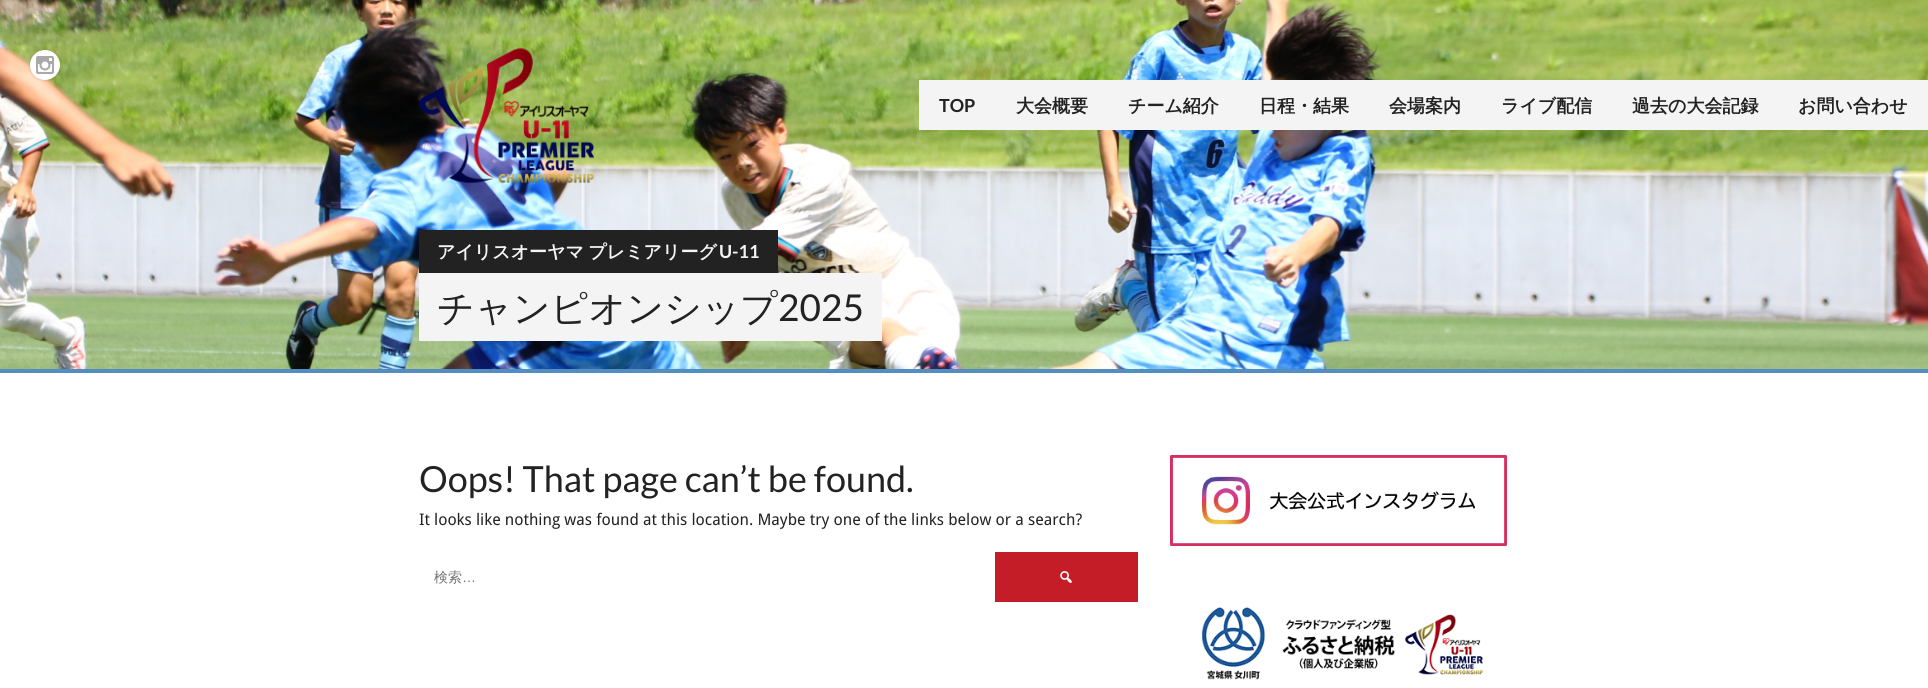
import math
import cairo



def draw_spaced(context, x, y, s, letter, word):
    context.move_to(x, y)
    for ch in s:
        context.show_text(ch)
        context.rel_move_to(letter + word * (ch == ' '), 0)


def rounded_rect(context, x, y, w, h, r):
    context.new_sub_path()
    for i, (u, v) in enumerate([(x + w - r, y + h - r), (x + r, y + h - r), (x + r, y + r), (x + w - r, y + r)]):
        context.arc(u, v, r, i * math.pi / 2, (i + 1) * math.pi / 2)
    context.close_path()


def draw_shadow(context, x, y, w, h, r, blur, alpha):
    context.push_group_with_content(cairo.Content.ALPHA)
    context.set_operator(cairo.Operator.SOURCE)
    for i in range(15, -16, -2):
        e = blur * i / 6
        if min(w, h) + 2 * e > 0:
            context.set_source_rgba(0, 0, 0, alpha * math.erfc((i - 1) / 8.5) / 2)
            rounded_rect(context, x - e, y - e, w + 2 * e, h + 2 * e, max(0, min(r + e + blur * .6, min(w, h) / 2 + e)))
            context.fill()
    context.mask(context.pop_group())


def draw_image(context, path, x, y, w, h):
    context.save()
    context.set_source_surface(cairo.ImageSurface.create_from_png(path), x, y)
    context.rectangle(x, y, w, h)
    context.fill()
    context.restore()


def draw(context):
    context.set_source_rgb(1, 1, 1)
    context.paint()
    context.set_source_rgb(84 / 255, 141 / 255, 191 / 255)
    context.rectangle(0, 369, 1928, 4)
    context.fill()
    draw_image(context, "images/1.png", 0, 0, 1928, 369)
    context.set_source_rgb(244 / 255, 244 / 255, 244 / 255)
    context.rectangle(919, 80, 1009, 50)
    context.fill()
    draw_image(context, "images/2.png", 419, 47, 175, 137)
    context.set_source_rgb(34 / 255, 34 / 255, 34 / 255)
    context.rectangle(419, 230, 359, 43)
    context.fill()
    context.set_source_rgb(244 / 255, 244 / 255, 244 / 255)
    context.rectangle(419, 273, 463, 68)
    context.fill()
    context.set_source_rgb(0, 0, 0)
    draw_shadow(context, 30, 50, 30, 30, 15, 1.5, 0.15)
    context.set_source_rgb(1, 1, 1)
    context.arc(45, 65, 15, 0, 2 * math.pi)
    context.fill()
    draw_image(context, "images/3.png", 36, 56, 18, 18)
    context.set_source_rgb(197 / 255, 29 / 255, 39 / 255)
    context.rectangle(995, 552, 143, 50)
    context.fill()
    draw_image(context, "images/4.png", 1060, 571, 12, 12)
    draw_image(context, "images/5.png", 1170, 455, 337, 91)
    draw_image(context, "images/6.png", 1201, 607, 282, 73)
    context.select_font_face("Lato", cairo.FontSlant.NORMAL, cairo.FontWeight.BOLD)
    context.set_font_size(18)
    context.set_source_rgb(34 / 255, 34 / 255, 34 / 255)
    context.move_to(939, 112)
    context.show_text("TOP")
    context.select_font_face("WenQuanYi Zen Hei", cairo.FontSlant.NORMAL, cairo.FontWeight.BOLD)
    context.move_to(1016, 112)
    context.show_text("大会概要")
    context.move_to(1128, 112)
    context.show_text("チーム紹介")
    context.move_to(1259, 112)
    context.show_text("日程・結果")
    context.move_to(1389, 112)
    context.show_text("会場案内")
    context.move_to(1501, 112)
    context.show_text("ライブ配信")
    context.move_to(1632, 112)
    context.show_text("過去の大会記録")
    context.move_to(1798, 112)
    context.show_text("お問い合わせ")
    context.set_source_rgb(244 / 255, 244 / 255, 244 / 255)
    draw_spaced(context, 437, 258, "アイリスオーヤマ プレミアリーグ", 0, -1)
    context.select_font_face("Lato", cairo.FontSlant.NORMAL, cairo.FontWeight.BOLD)
    context.move_to(719, 258)
    context.show_text("U-11")
    context.select_font_face("WenQuanYi Zen Hei Medium")
    context.set_font_size(37)
    context.set_source_rgb(34 / 255, 34 / 255, 34 / 255)
    context.move_to(437, 321)
    context.show_text("チャンピオンシップ")
    context.select_font_face("Lato")
    context.move_to(778, 321)
    context.show_text("2025")
    context.set_font_size(36)
    context.move_to(419, 492)
    context.show_text("Oops! That page can’t be found.")
    context.select_font_face("Droid Sans")
    context.set_font_size(16)
    context.move_to(419, 525)
    context.show_text("It looks like nothing was found at this location. Maybe try one of the links below or a search?")
    context.select_font_face("WenQuanYi Zen Hei Medium")
    context.set_font_size(14)
    context.set_source_rgb(117 / 255, 117 / 255, 117 / 255)
    context.move_to(434, 582)
    context.show_text("検索")
    context.select_font_face("Liberation Sans")
    context.move_to(462, 582)
    context.show_text("…")


surface = cairo.ImageSurface(cairo.Format.RGB24, 1928, 688)
context = cairo.Context(surface)
options = cairo.FontOptions()
options.set_hint_metrics(cairo.HintMetrics.OFF)
options.set_hint_style(cairo.HintStyle.NONE)
context.set_font_options(options)
context.set_miter_limit(4)
draw(context)
surface.write_to_png("out.png")
